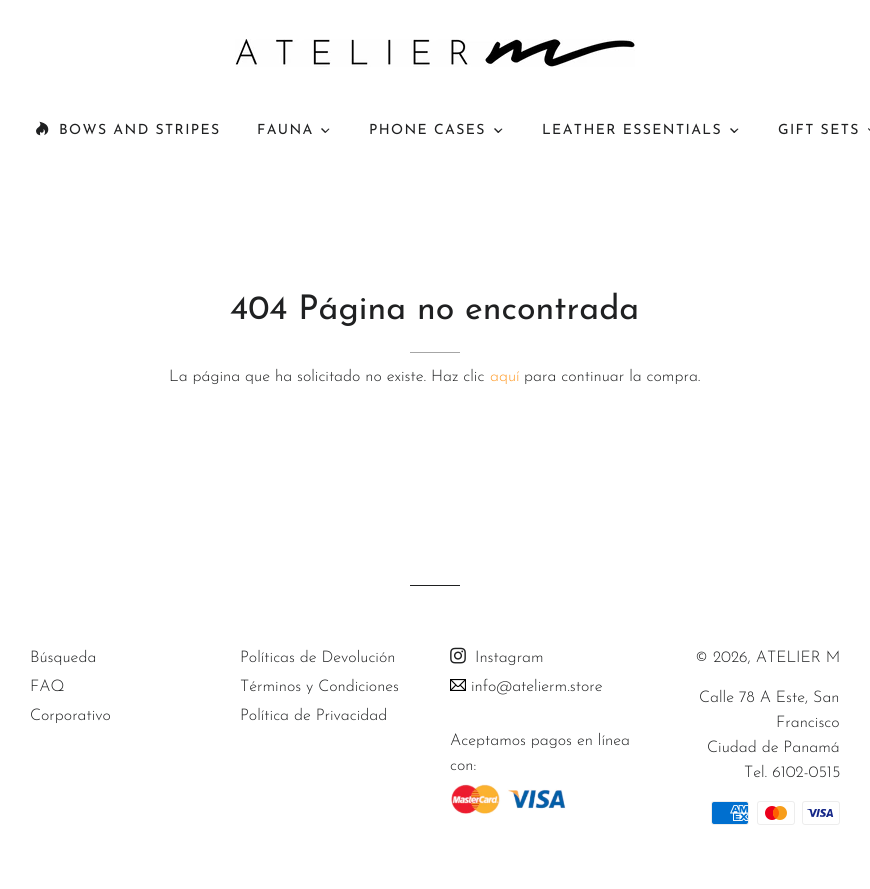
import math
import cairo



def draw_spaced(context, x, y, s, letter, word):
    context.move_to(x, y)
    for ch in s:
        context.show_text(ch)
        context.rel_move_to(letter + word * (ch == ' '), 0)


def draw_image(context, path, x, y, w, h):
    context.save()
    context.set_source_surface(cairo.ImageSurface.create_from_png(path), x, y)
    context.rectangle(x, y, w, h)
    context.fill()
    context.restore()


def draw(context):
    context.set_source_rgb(1, 1, 1)
    context.paint()
    draw_image(context, "images/1.png", 235, 39, 400, 28)
    draw_image(context, "images/2.png", 36, 121, 13, 15)
    context.set_source_rgb(31 / 255, 32 / 255, 33 / 255)
    context.new_path()
    context.move_to(328.5, 128.5)
    context.line_to(329.5, 129)
    context.line_to(325.5, 133)
    context.line_to(325, 132)
    context.close_path()
    context.fill()
    context.new_path()
    context.move_to(322, 128)
    context.line_to(326, 132)
    context.line_to(325, 133)
    context.line_to(321, 129)
    context.close_path()
    context.fill()
    context.new_path()
    context.move_to(501.5, 128.5)
    context.line_to(502.5, 129)
    context.line_to(498.5, 133)
    context.line_to(497.5, 132)
    context.close_path()
    context.fill()
    context.new_path()
    context.move_to(495, 128)
    context.line_to(499, 132)
    context.line_to(498, 133)
    context.line_to(494, 129)
    context.close_path()
    context.fill()
    context.new_path()
    context.move_to(737.5, 128.5)
    context.line_to(738.5, 129)
    context.line_to(734.5, 133)
    context.line_to(733.5, 132)
    context.close_path()
    context.fill()
    context.new_path()
    context.move_to(731, 128)
    context.line_to(735, 132)
    context.line_to(734, 133)
    context.line_to(730, 129)
    context.close_path()
    context.fill()
    context.new_path()
    context.move_to(868.5, 128)
    context.line_to(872.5, 132)
    context.line_to(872, 133)
    context.line_to(868, 129)
    context.close_path()
    context.fill()
    context.set_source_rgb(166 / 255, 166 / 255, 166 / 255)
    context.rectangle(410, 352, 50, 1)
    context.fill()
    context.set_source_rgb(31 / 255, 32 / 255, 33 / 255)
    context.rectangle(410, 585, 50, 1)
    context.fill()
    draw_image(context, "images/3.png", 450, 647, 16, 17)
    draw_image(context, "images/4.png", 450, 679, 16, 12)
    draw_image(context, "images/5.png", 451, 784, 115, 31)
    draw_image(context, "images/6.png", 711, 801, 38, 24)
    draw_image(context, "images/7.png", 757, 801, 38, 24)
    draw_image(context, "images/8.png", 802, 801, 38, 24)
    context.select_font_face("Josefin Sans")
    context.set_font_size(14)
    draw_spaced(context, 59, 134, "BOWS AND STRIPES", 1.4, 0)
    draw_spaced(context, 257, 134, "FAUNA", 1.4, 0)
    draw_spaced(context, 369, 134, "PHONE CASES", 1.4, 0)
    draw_spaced(context, 542, 134, "LEATHER ESSENTIALS", 1.4, 0)
    draw_spaced(context, 778, 134, "GIFT SETS", 1.4, 0)
    context.set_font_size(34)
    context.move_to(230, 319)
    context.show_text("404 Página no encontrada")
    context.select_font_face("Josefin Sans Light")
    context.set_font_size(16)
    context.move_to(169, 381)
    context.show_text("La página que ha solicitado no existe. Haz clic")
    context.set_source_rgb(1, 155 / 255, 40 / 255)
    context.move_to(490, 381)
    context.show_text("aquí")
    context.set_source_rgb(31 / 255, 32 / 255, 33 / 255)
    context.move_to(524, 381)
    context.show_text("para continuar la compra.")
    context.move_to(30, 662)
    context.show_text("Búsqueda")
    context.move_to(30, 691)
    context.show_text("FAQ")
    context.move_to(30, 720)
    context.show_text("Corporativo")
    context.move_to(240, 662)
    context.show_text("Políticas de Devolución")
    context.move_to(240, 691)
    context.show_text("Términos y Condiciones")
    context.move_to(240, 720)
    context.show_text("Política de Privacidad")
    context.move_to(475, 662)
    context.show_text("Instagram")
    context.move_to(471, 691)
    context.show_text("info@atelierm.store")
    context.move_to(450, 745)
    context.show_text("Aceptamos pagos en línea")
    context.move_to(450, 770)
    context.show_text("con:")
    context.move_to(695, 662)
    context.show_text("© 2026, ATELIER M")
    context.move_to(699, 702)
    context.show_text("Calle 78 A Este, San")
    context.move_to(776, 727)
    context.show_text("Francisco")
    context.move_to(707, 752)
    context.show_text("Ciudad de Panamá")
    context.move_to(744, 777)
    context.show_text("Tel. 6102-0515")


surface = cairo.ImageSurface(cairo.Format.RGB24, 870, 889)
context = cairo.Context(surface)
options = cairo.FontOptions()
options.set_hint_metrics(cairo.HintMetrics.OFF)
options.set_hint_style(cairo.HintStyle.NONE)
context.set_font_options(options)
context.set_miter_limit(4)
draw(context)
surface.write_to_png("out.png")
